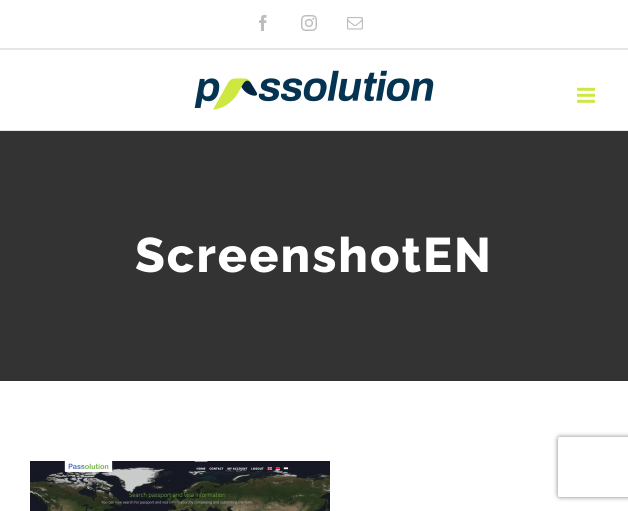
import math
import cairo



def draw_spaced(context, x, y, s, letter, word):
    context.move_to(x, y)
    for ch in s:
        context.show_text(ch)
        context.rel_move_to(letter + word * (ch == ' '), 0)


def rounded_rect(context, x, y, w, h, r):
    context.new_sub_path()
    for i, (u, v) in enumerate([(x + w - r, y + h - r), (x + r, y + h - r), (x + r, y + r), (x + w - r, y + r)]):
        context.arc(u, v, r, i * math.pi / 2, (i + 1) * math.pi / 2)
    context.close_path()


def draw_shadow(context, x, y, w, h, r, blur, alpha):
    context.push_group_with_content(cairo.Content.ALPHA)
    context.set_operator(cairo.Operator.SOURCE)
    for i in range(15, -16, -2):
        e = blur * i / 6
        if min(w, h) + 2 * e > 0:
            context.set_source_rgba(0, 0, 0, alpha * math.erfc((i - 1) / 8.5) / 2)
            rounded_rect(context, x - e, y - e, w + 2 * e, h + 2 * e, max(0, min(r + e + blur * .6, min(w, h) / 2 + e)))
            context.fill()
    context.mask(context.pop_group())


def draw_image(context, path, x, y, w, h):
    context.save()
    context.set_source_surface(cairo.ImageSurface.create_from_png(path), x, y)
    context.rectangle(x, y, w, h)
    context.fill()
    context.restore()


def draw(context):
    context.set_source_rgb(1, 1, 1)
    context.paint()
    context.set_source_rgb(229 / 255, 229 / 255, 229 / 255)
    context.rectangle(0, 48, 628, 2)
    context.fill()
    draw_image(context, "images/1.png", 259, 15, 8, 16)
    draw_image(context, "images/2.png", 301, 15, 16, 16)
    draw_image(context, "images/3.png", 347, 17, 16, 13)
    context.rectangle(0, 130, 628, 1)
    context.fill()
    draw_image(context, "images/4.png", 194, 70, 240, 40)
    draw_image(context, "images/5.png", 577, 87, 18, 16)
    context.set_source_rgb(51 / 255, 51 / 255, 51 / 255)
    context.rectangle(0, 131, 628, 250)
    context.fill()
    draw_image(context, "images/6.png", 30, 461, 300, 50)
    context.save()
    context.set_fill_rule(cairo.FillRule.EVEN_ODD)
    context.new_path()
    context.move_to(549, 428)
    context.line_to(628, 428)
    context.line_to(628, 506)
    context.line_to(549, 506)
    context.close_path()
    context.move_to(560, 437)
    context.line_to(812, 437)
    context.curve_to(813, 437, 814, 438, 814, 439)
    context.line_to(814, 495)
    context.curve_to(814, 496, 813, 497, 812, 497)
    context.line_to(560, 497)
    context.curve_to(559, 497, 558, 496, 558, 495)
    context.line_to(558, 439)
    context.curve_to(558, 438, 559, 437, 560, 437)
    context.close_path()
    context.clip()
    context.set_source_rgb(128 / 255, 128 / 255, 128 / 255)
    draw_shadow(context, 558, 437, 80, 60, 2, 2.5, 1)
    context.restore()
    context.select_font_face("Raleway ExtraBold")
    context.set_font_size(48.5)
    context.set_source_rgb(1, 1, 1)
    draw_spaced(context, 135, 272, "ScreenshotEN", 2, 0)


surface = cairo.ImageSurface(cairo.Format.RGB24, 628, 511)
context = cairo.Context(surface)
options = cairo.FontOptions()
options.set_hint_metrics(cairo.HintMetrics.OFF)
options.set_hint_style(cairo.HintStyle.NONE)
context.set_font_options(options)
context.set_miter_limit(4)
draw(context)
surface.write_to_png("out.png")
